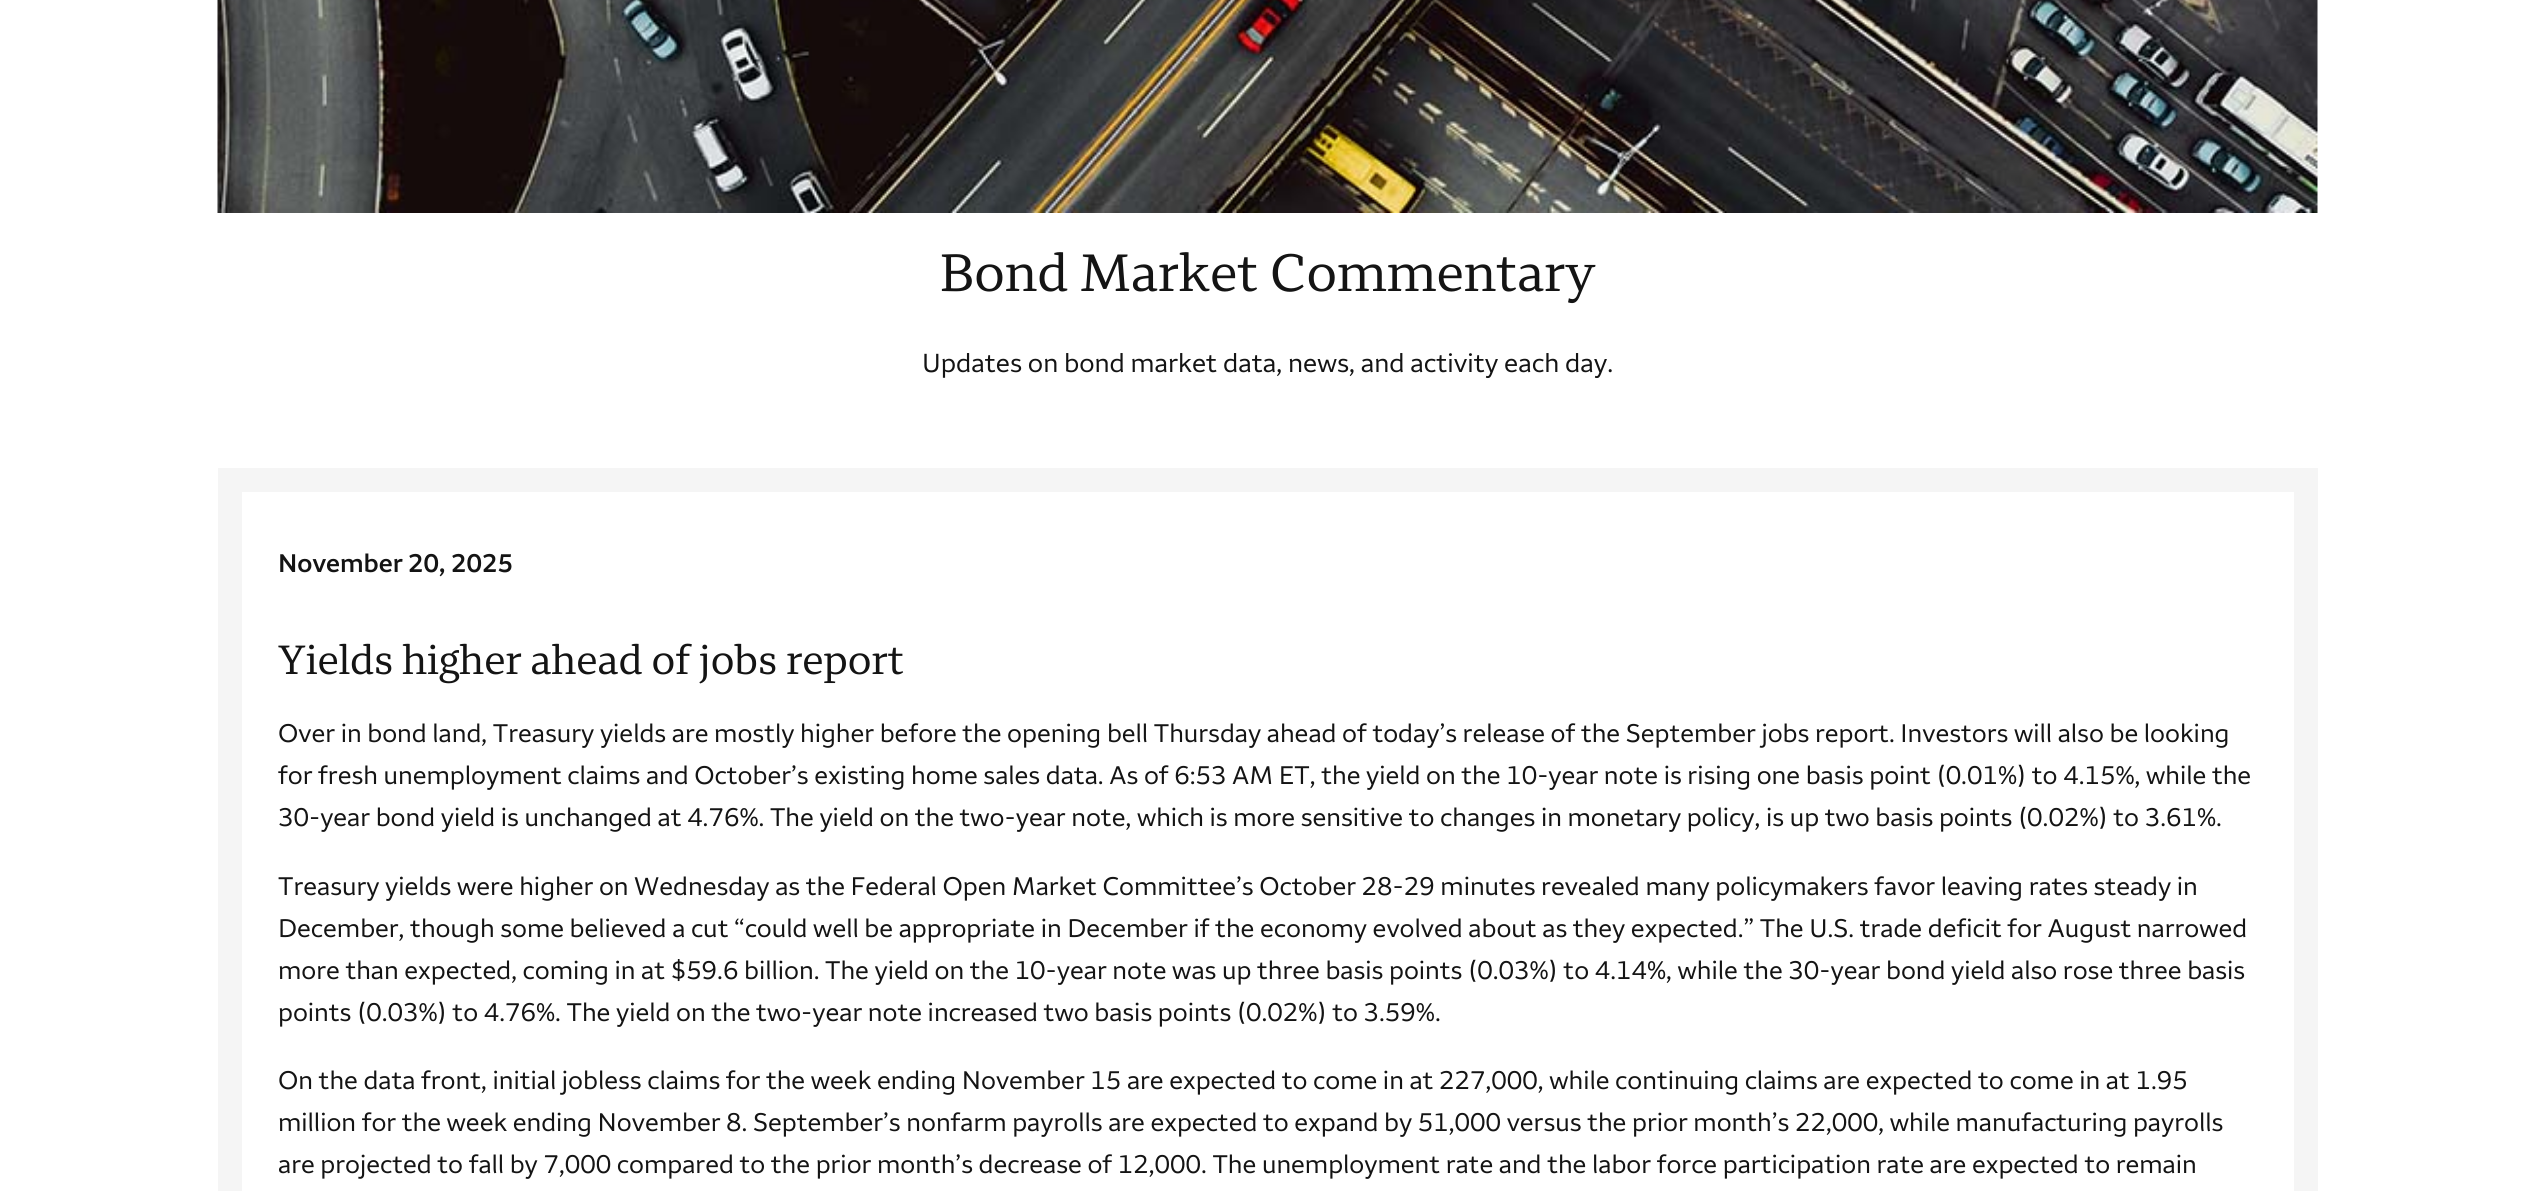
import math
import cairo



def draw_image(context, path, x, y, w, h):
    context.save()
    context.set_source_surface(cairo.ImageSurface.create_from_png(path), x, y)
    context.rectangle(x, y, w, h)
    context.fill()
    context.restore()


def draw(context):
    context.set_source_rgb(1, 1, 1)
    context.paint()
    draw_image(context, "images/1.png", 217, 0, 2101, 213)
    context.set_source_rgb(245 / 255, 245 / 255, 245 / 255)
    context.rectangle(218, 468, 2100, 723)
    context.fill()
    context.set_source_rgb(1, 1, 1)
    context.rectangle(242, 492, 2052, 699)
    context.fill()
    context.select_font_face("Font")
    context.set_font_size(54)
    context.set_source_rgb(20 / 255, 20 / 255, 20 / 255)
    context.move_to(940, 291)
    context.show_text("Bond Market Commentary")
    context.select_font_face("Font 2")
    context.set_font_size(26.9)
    context.move_to(922, 372)
    context.show_text("Updates on bond market data, news, and activity each day.")
    context.select_font_face("Font SemiBold")
    context.set_font_size(26.25)
    context.move_to(278, 572)
    context.show_text("November 20, 2025")
    context.select_font_face("Font")
    context.set_font_size(42)
    context.move_to(278, 674)
    context.show_text("Yields higher ahead of jobs report")
    context.select_font_face("Font 2")
    context.set_font_size(26.25)
    context.move_to(278, 742)
    context.show_text("Over in bond land, Treasury yields are mostly higher before the opening bell Thursday ahead of today’s release of the September jobs report. Investors will also be looking")
    context.move_to(278, 784)
    context.show_text("for fresh unemployment claims and October’s existing home sales data. As of 6:53 AM ET, the yield on the 10-year note is rising one basis point (0.01%) to 4.15%, while the")
    context.move_to(278, 826)
    context.show_text("30-year bond yield is unchanged at 4.76%. The yield on the two-year note, which is more sensitive to changes in monetary policy, is up two basis points (0.02%) to 3.61%.")
    context.move_to(278, 895)
    context.show_text("Treasury yields were higher on Wednesday as the Federal Open Market Committee’s October 28-29 minutes revealed many policymakers favor leaving rates steady in")
    context.move_to(278, 937)
    context.show_text("December, though some believed a cut “could well be appropriate in December if the economy evolved about as they expected.” The U.S. trade deficit for August narrowed")
    context.move_to(278, 979)
    context.show_text("more than expected, coming in at $59.6 billion. The yield on the 10-year note was up three basis points (0.03%) to 4.14%, while the 30-year bond yield also rose three basis")
    context.move_to(278, 1021)
    context.show_text("points (0.03%) to 4.76%. The yield on the two-year note increased two basis points (0.02%) to 3.59%.")
    context.move_to(278, 1089)
    context.show_text("On the data front, initial jobless claims for the week ending November 15 are expected to come in at 227,000, while continuing claims are expected to come in at 1.95")
    context.move_to(278, 1131)
    context.show_text("million for the week ending November 8. September’s nonfarm payrolls are expected to expand by 51,000 versus the prior month’s 22,000, while manufacturing payrolls")
    context.move_to(278, 1173)
    context.show_text("are projected to fall by 7,000 compared to the prior month’s decrease of 12,000. The unemployment rate and the labor force participation rate are expected to remain")


surface = cairo.ImageSurface(cairo.Format.RGB24, 2535, 1191)
context = cairo.Context(surface)
options = cairo.FontOptions()
options.set_hint_metrics(cairo.HintMetrics.OFF)
options.set_hint_style(cairo.HintStyle.NONE)
context.set_font_options(options)
context.set_miter_limit(4)
draw(context)
surface.write_to_png("out.png")
